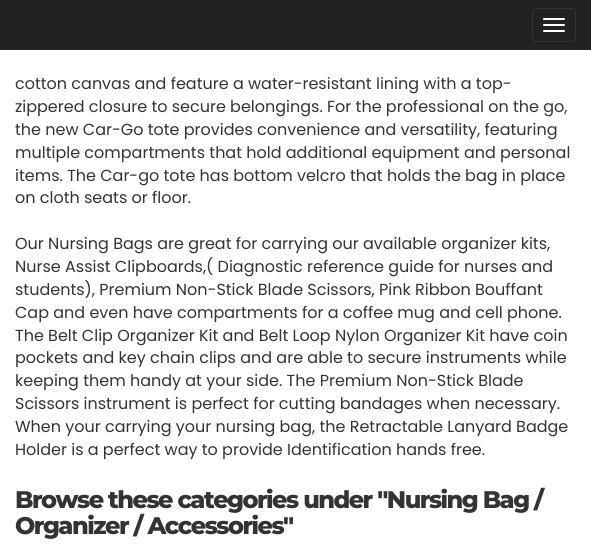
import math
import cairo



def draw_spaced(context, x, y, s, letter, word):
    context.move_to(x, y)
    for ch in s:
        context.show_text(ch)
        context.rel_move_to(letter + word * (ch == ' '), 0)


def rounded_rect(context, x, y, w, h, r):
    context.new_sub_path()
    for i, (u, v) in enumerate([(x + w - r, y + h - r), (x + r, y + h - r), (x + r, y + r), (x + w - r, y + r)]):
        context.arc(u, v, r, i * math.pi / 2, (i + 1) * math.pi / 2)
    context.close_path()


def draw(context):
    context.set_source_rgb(1, 1, 1)
    context.paint()
    context.set_source_rgb(34 / 255, 34 / 255, 34 / 255)
    context.rectangle(0, 0, 591, 50)
    context.fill()
    rounded_rect(context, 532.5, 8.5, 43, 33, 3.5)
    context.set_source_rgb(51 / 255, 51 / 255, 51 / 255)
    context.set_line_width(1)
    context.stroke()
    context.set_source_rgb(1, 1, 1)
    rounded_rect(context, 543, 18, 22, 2, 1)
    context.fill()
    rounded_rect(context, 543, 24, 22, 2, 1)
    context.fill()
    rounded_rect(context, 543, 30, 22, 2, 1)
    context.fill()
    context.select_font_face("Poppins")
    context.set_font_size(16)
    context.set_source_rgb(51 / 255, 51 / 255, 51 / 255)
    context.move_to(15, 89)
    context.show_text("cotton canvas and feature a water-resistant lining with a top-")
    gradient = cairo.LinearGradient(296, 50, 296, 80)
    gradient.add_color_stop_rgba(0, 1, 1, 1, 1)
    gradient.add_color_stop_rgba(0.26, 1, 1, 1, 1)
    gradient.add_color_stop_rgba(0.53, 1, 1, 1, 0.77)
    gradient.add_color_stop_rgba(1, 1, 1, 1, 0)
    context.set_source(gradient)
    context.rectangle(36, 76, 443, 4)
    context.fill()
    context.set_source_rgb(51 / 255, 51 / 255, 51 / 255)
    context.move_to(15, 112)
    context.show_text("zippered closure to secure belongings. For the professional on the go,")
    context.move_to(15, 135)
    context.show_text("the new Car-Go tote provides convenience and versatility, featuring")
    context.move_to(15, 158)
    context.show_text("multiple compartments that hold additional equipment and personal")
    context.move_to(15, 181)
    context.show_text("items. The Car-go tote has bottom velcro that holds the bag in place")
    context.move_to(15, 203)
    context.show_text("on cloth seats or floor.")
    context.move_to(15, 249)
    context.show_text("Our Nursing Bags are great for carrying our available organizer kits,")
    context.move_to(15, 272)
    context.show_text("Nurse Assist Clipboards,( Diagnostic reference guide for nurses and")
    context.move_to(15, 295)
    context.show_text("students), Premium Non-Stick Blade Scissors, Pink Ribbon Bouffant")
    context.move_to(15, 318)
    context.show_text("Cap and even have compartments for a coffee mug and cell phone.")
    context.move_to(15, 341)
    context.show_text("The Belt Clip Organizer Kit and Belt Loop Nylon Organizer Kit have coin")
    context.move_to(15, 363)
    context.show_text("pockets and key chain clips and are able to secure instruments while")
    context.move_to(15, 386)
    context.show_text("keeping them handy at your side. The Premium Non-Stick Blade")
    context.move_to(15, 409)
    context.show_text("Scissors instrument is perfect for cutting bandages when necessary.")
    context.move_to(15, 432)
    context.show_text("When your carrying your nursing bag, the Retractable Lanyard Badge")
    context.move_to(15, 455)
    context.show_text("Holder is a perfect way to provide Identification hands free.")
    context.select_font_face("Montserrat ExtraBold")
    context.set_font_size(24)
    draw_spaced(context, 15, 508, "Browse these categories under \"Nursing Bag /", -1.5, 0)
    draw_spaced(context, 15, 534, "Organizer / Accessories\"", -1.5, 0)


surface = cairo.ImageSurface(cairo.Format.RGB24, 591, 556)
context = cairo.Context(surface)
options = cairo.FontOptions()
options.set_hint_metrics(cairo.HintMetrics.OFF)
options.set_hint_style(cairo.HintStyle.NONE)
context.set_font_options(options)
context.set_miter_limit(4)
draw(context)
surface.write_to_png("out.png")
